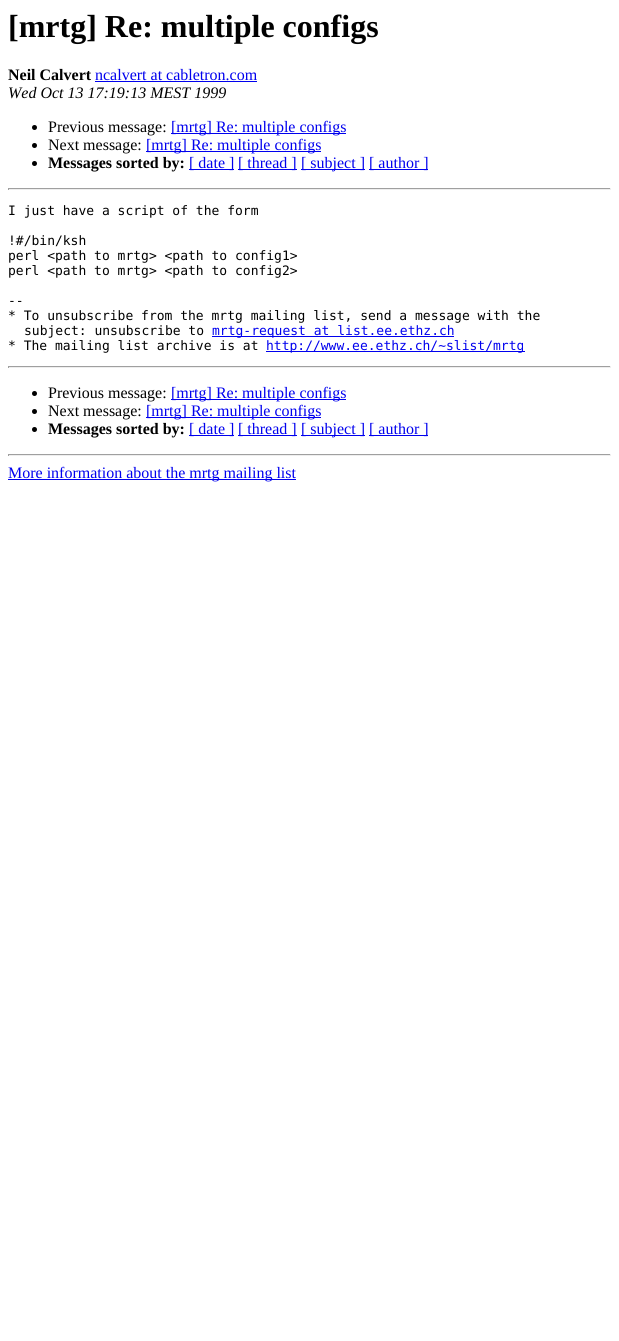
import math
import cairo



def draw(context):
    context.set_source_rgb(1, 1, 1)
    context.paint()
    context.set_source_rgb(0, 0, 238 / 255)
    context.rectangle(95, 81, 162, 1)
    context.fill()
    context.set_source_rgb(0, 0, 0)
    context.arc(34.5, 127.5, 2.5, 0, 2 * math.pi)
    context.fill()
    context.set_source_rgb(0, 0, 238 / 255)
    context.rectangle(171, 133, 175, 1)
    context.fill()
    context.set_source_rgb(0, 0, 0)
    context.arc(34.5, 145.5, 2.5, 0, 2 * math.pi)
    context.fill()
    context.set_source_rgb(0, 0, 238 / 255)
    context.rectangle(146, 151, 175, 1)
    context.fill()
    context.set_source_rgb(0, 0, 0)
    context.arc(34.5, 163.5, 2.5, 0, 2 * math.pi)
    context.fill()
    context.set_source_rgb(0, 0, 238 / 255)
    context.rectangle(189, 169, 45, 1)
    context.fill()
    context.rectangle(238, 169, 59, 1)
    context.fill()
    context.rectangle(301, 169, 64, 1)
    context.fill()
    context.rectangle(369, 169, 59, 1)
    context.fill()
    context.set_source_rgb(159 / 255, 159 / 255, 159 / 255)
    context.rectangle(8, 188, 603, 1)
    context.fill()
    context.set_source_rgb(238 / 255, 238 / 255, 238 / 255)
    context.rectangle(610, 188, 1, 2)
    context.fill()
    context.rectangle(8, 189, 603, 1)
    context.fill()
    context.set_source_rgb(159 / 255, 159 / 255, 159 / 255)
    context.rectangle(8, 188, 1, 2)
    context.fill()
    context.set_source_rgb(0, 0, 238 / 255)
    context.rectangle(212, 336, 242, 1)
    context.fill()
    context.rectangle(266, 351, 259, 1)
    context.fill()
    context.set_source_rgb(159 / 255, 159 / 255, 159 / 255)
    context.rectangle(8, 366, 603, 1)
    context.fill()
    context.set_source_rgb(238 / 255, 238 / 255, 238 / 255)
    context.rectangle(610, 366, 1, 2)
    context.fill()
    context.rectangle(8, 367, 603, 1)
    context.fill()
    context.set_source_rgb(159 / 255, 159 / 255, 159 / 255)
    context.rectangle(8, 366, 1, 2)
    context.fill()
    context.set_source_rgb(0, 0, 0)
    context.arc(34.5, 393.5, 2.5, 0, 2 * math.pi)
    context.fill()
    context.set_source_rgb(0, 0, 238 / 255)
    context.rectangle(171, 399, 175, 1)
    context.fill()
    context.set_source_rgb(0, 0, 0)
    context.arc(34.5, 411.5, 2.5, 0, 2 * math.pi)
    context.fill()
    context.set_source_rgb(0, 0, 238 / 255)
    context.rectangle(146, 417, 175, 1)
    context.fill()
    context.set_source_rgb(0, 0, 0)
    context.arc(34.5, 429.5, 2.5, 0, 2 * math.pi)
    context.fill()
    context.set_source_rgb(0, 0, 238 / 255)
    context.rectangle(189, 435, 45, 1)
    context.fill()
    context.rectangle(238, 435, 59, 1)
    context.fill()
    context.rectangle(301, 435, 64, 1)
    context.fill()
    context.rectangle(369, 435, 59, 1)
    context.fill()
    context.set_source_rgb(159 / 255, 159 / 255, 159 / 255)
    context.rectangle(8, 454, 603, 1)
    context.fill()
    context.set_source_rgb(238 / 255, 238 / 255, 238 / 255)
    context.rectangle(610, 454, 1, 2)
    context.fill()
    context.rectangle(8, 455, 603, 1)
    context.fill()
    context.set_source_rgb(159 / 255, 159 / 255, 159 / 255)
    context.rectangle(8, 454, 1, 2)
    context.fill()
    context.set_source_rgb(0, 0, 238 / 255)
    context.rectangle(8, 479, 288, 1)
    context.fill()
    context.select_font_face("Liberation Serif", cairo.FontSlant.NORMAL, cairo.FontWeight.BOLD)
    context.set_font_size(32)
    context.set_source_rgb(0, 0, 0)
    context.move_to(8, 37)
    context.show_text("[mrtg] Re: multiple configs")
    context.set_font_size(16)
    context.move_to(8, 80)
    context.show_text("Neil Calvert")
    context.select_font_face("Liberation Serif")
    context.set_source_rgb(0, 0, 238 / 255)
    context.move_to(95, 80)
    context.show_text("ncalvert at cabletron.com")
    context.select_font_face("Liberation Serif", cairo.FontSlant.ITALIC)
    context.set_source_rgb(0, 0, 0)
    context.move_to(8, 98)
    context.show_text("Wed Oct 13 17:19:13 MEST 1999")
    context.select_font_face("Liberation Serif")
    context.move_to(48, 132)
    context.show_text("Previous message:")
    context.set_source_rgb(0, 0, 238 / 255)
    context.move_to(171, 132)
    context.show_text("[mrtg] Re: multiple configs")
    context.set_source_rgb(0, 0, 0)
    context.move_to(48, 150)
    context.show_text("Next message:")
    context.set_source_rgb(0, 0, 238 / 255)
    context.move_to(146, 150)
    context.show_text("[mrtg] Re: multiple configs")
    context.select_font_face("Liberation Serif", cairo.FontSlant.NORMAL, cairo.FontWeight.BOLD)
    context.set_source_rgb(0, 0, 0)
    context.move_to(48, 168)
    context.show_text("Messages sorted by:")
    context.select_font_face("Liberation Serif")
    context.set_source_rgb(0, 0, 238 / 255)
    context.move_to(189, 168)
    context.show_text("[ date ]")
    context.move_to(238, 168)
    context.show_text("[ thread ]")
    context.move_to(301, 168)
    context.show_text("[ subject ]")
    context.move_to(369, 168)
    context.show_text("[ author ]")
    context.select_font_face("DejaVu Sans Mono")
    context.set_font_size(13)
    context.set_source_rgb(0, 0, 0)
    context.move_to(8, 215)
    context.show_text("I just have a script of the form")
    context.move_to(8, 245)
    context.show_text("!#/bin/ksh")
    context.move_to(8, 260)
    context.show_text("perl <path to mrtg> <path to config1>")
    context.move_to(8, 275)
    context.show_text("perl <path to mrtg> <path to config2>")
    context.move_to(8, 305)
    context.show_text("--")
    context.move_to(8, 320)
    context.show_text("* To unsubscribe from the mrtg mailing list, send a message with the")
    context.move_to(24, 335)
    context.show_text("subject: unsubscribe to")
    context.set_source_rgb(0, 0, 238 / 255)
    context.move_to(212, 335)
    context.show_text("mrtg-request at list.ee.ethz.ch")
    context.set_source_rgb(0, 0, 0)
    context.move_to(8, 350)
    context.show_text("* The mailing list archive is at")
    context.set_source_rgb(0, 0, 238 / 255)
    context.move_to(266, 350)
    context.show_text("http://www.ee.ethz.ch/~slist/mrtg")
    context.select_font_face("Liberation Serif")
    context.set_font_size(16)
    context.set_source_rgb(0, 0, 0)
    context.move_to(48, 398)
    context.show_text("Previous message:")
    context.set_source_rgb(0, 0, 238 / 255)
    context.move_to(171, 398)
    context.show_text("[mrtg] Re: multiple configs")
    context.set_source_rgb(0, 0, 0)
    context.move_to(48, 416)
    context.show_text("Next message:")
    context.set_source_rgb(0, 0, 238 / 255)
    context.move_to(146, 416)
    context.show_text("[mrtg] Re: multiple configs")
    context.select_font_face("Liberation Serif", cairo.FontSlant.NORMAL, cairo.FontWeight.BOLD)
    context.set_source_rgb(0, 0, 0)
    context.move_to(48, 434)
    context.show_text("Messages sorted by:")
    context.select_font_face("Liberation Serif")
    context.set_source_rgb(0, 0, 238 / 255)
    context.move_to(189, 434)
    context.show_text("[ date ]")
    context.move_to(238, 434)
    context.show_text("[ thread ]")
    context.move_to(301, 434)
    context.show_text("[ subject ]")
    context.move_to(369, 434)
    context.show_text("[ author ]")
    context.move_to(8, 478)
    context.show_text("More information about the mrtg mailing list")


surface = cairo.ImageSurface(cairo.Format.RGB24, 619, 1341)
context = cairo.Context(surface)
options = cairo.FontOptions()
options.set_hint_metrics(cairo.HintMetrics.OFF)
options.set_hint_style(cairo.HintStyle.NONE)
context.set_font_options(options)
context.set_miter_limit(4)
draw(context)
surface.write_to_png("out.png")
